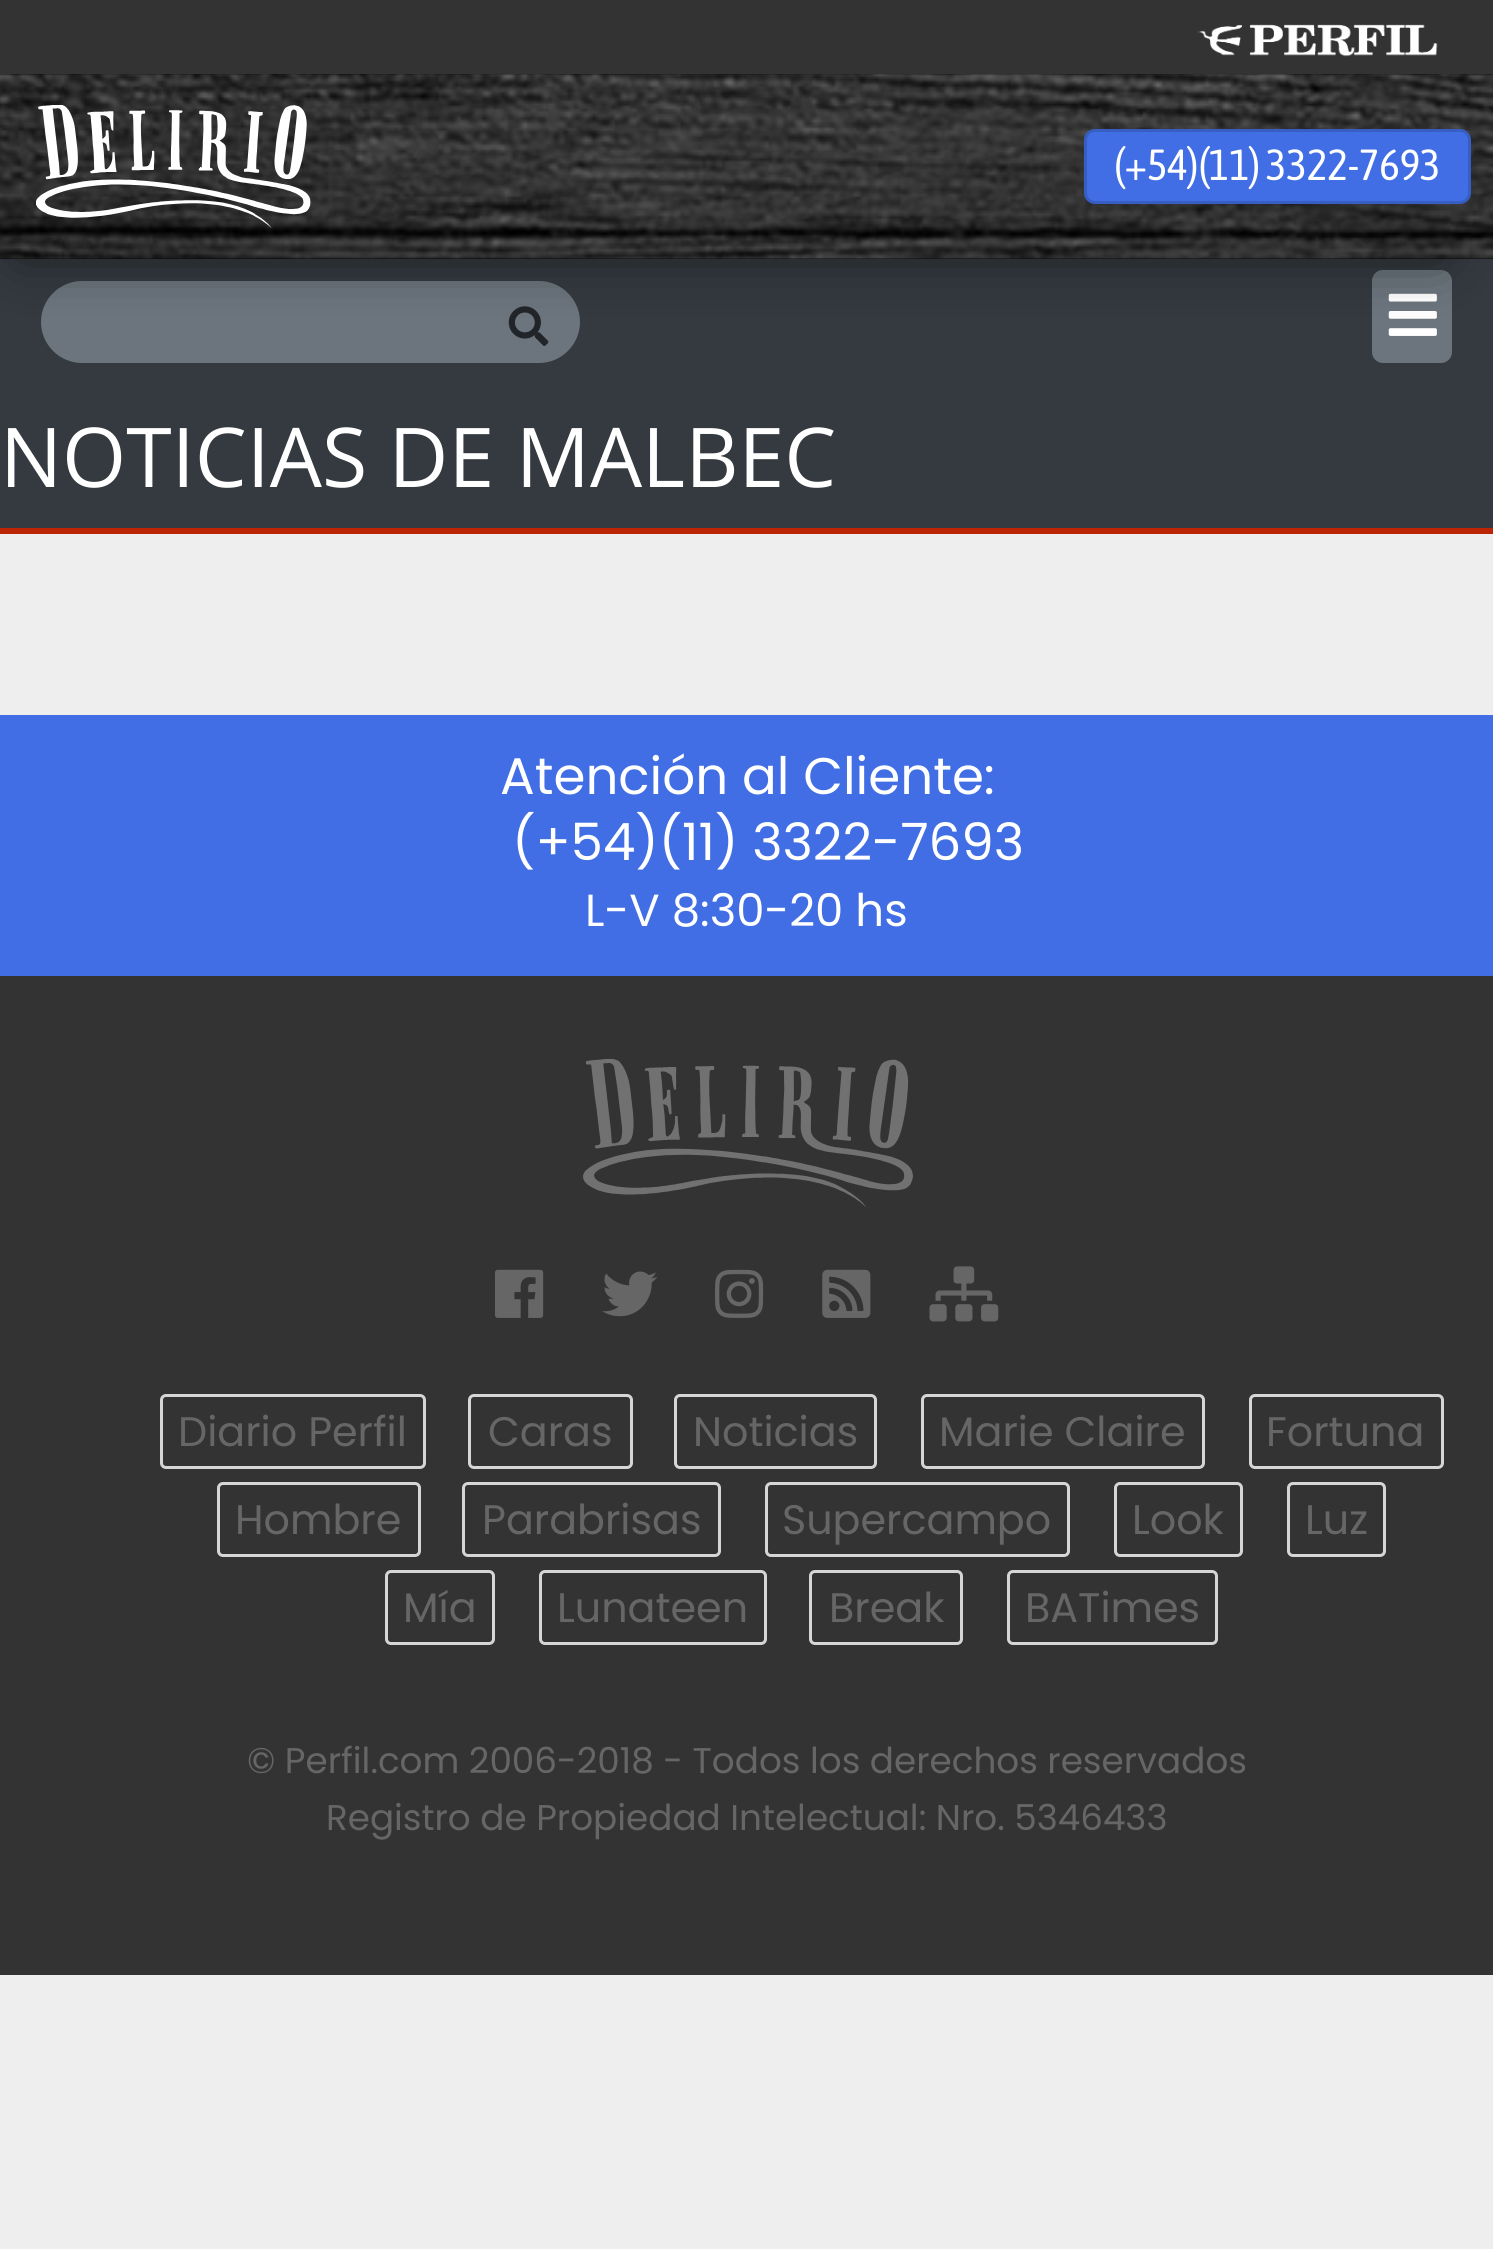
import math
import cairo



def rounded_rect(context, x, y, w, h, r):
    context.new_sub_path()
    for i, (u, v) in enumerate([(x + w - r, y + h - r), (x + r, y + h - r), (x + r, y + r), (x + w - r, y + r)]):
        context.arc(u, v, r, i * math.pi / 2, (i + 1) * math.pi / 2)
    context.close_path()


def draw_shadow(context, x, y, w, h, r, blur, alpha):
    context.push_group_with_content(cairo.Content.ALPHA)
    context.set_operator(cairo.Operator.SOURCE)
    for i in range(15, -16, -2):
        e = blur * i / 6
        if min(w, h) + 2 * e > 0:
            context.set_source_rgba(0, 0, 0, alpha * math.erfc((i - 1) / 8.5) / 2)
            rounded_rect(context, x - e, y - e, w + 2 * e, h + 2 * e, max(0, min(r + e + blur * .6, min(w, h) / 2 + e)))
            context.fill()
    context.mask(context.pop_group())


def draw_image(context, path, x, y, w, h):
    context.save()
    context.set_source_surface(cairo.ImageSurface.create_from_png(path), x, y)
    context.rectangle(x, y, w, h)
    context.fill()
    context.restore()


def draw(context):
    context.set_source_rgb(238 / 255, 238 / 255, 238 / 255)
    context.paint()
    context.set_source_rgb(51 / 255, 51 / 255, 51 / 255)
    context.rectangle(0, 0, 1493, 74)
    context.fill()
    draw_image(context, "images/1.png", 1197, 24, 241, 33)
    context.set_source_rgb(52 / 255, 58 / 255, 64 / 255)
    context.rectangle(0, 259, 1493, 269)
    context.fill()
    context.set_source_rgb(108 / 255, 117 / 255, 125 / 255)
    context.new_path()
    context.move_to(82, 281)
    context.line_to(476, 281)
    context.line_to(476, 363)
    context.line_to(82, 363)
    context.curve_to(59.5, 363, 41, 344.5, 41, 322)
    context.curve_to(41, 299.5, 59.5, 281, 82, 281)
    context.close_path()
    context.fill()
    context.new_path()
    context.move_to(476, 281)
    context.line_to(539, 281)
    context.curve_to(561.5, 281, 580, 299.5, 580, 322)
    context.curve_to(580, 344.5, 561.5, 363, 539, 363)
    context.line_to(476, 363)
    context.close_path()
    context.fill()
    draw_image(context, "images/4.png", 508, 306, 41, 40)
    rounded_rect(context, 1372, 270, 80, 93, 11)
    context.fill()
    draw_image(context, "images/5.png", 1388, 293, 49, 43)
    context.set_source_rgb(0, 0, 0)
    draw_shadow(context, 19, 140, 1422, 113, 0, 30, 0.58)
    context.set_source_rgb(10 / 255, 10 / 255, 10 / 255)
    context.rectangle(0, 74, 1493, 185)
    context.fill()
    draw_image(context, "images/2.png", 0, 74, 1493, 185)
    draw_image(context, "images/3.png", 36, 105, 275, 123)
    context.set_source_rgb(65 / 255, 110 / 255, 228 / 255)
    rounded_rect(context, 1084, 129, 387, 75, 11)
    context.fill()
    rounded_rect(context, 1085.5, 130.5, 384, 72, 9.5)
    context.set_source_rgba(0, 0, 0, 0.15)
    context.set_line_width(3)
    context.stroke()
    context.set_source_rgb(187 / 255, 37 / 255, 3 / 255)
    context.rectangle(0, 528, 1493, 6)
    context.fill()
    context.set_source_rgb(65 / 255, 110 / 255, 228 / 255)
    context.rectangle(0, 715, 1493, 261)
    context.fill()
    context.set_source_rgb(51 / 255, 51 / 255, 51 / 255)
    context.rectangle(0, 976, 1493, 999)
    context.fill()
    draw_image(context, "images/6.png", 583, 1059, 330, 148)
    draw_image(context, "images/7.png", 495, 1269, 49, 49)
    draw_image(context, "images/8.png", 602, 1271, 55, 46)
    draw_image(context, "images/9.png", 715, 1269, 49, 49)
    draw_image(context, "images/10.png", 822, 1269, 49, 49)
    draw_image(context, "images/11.png", 929, 1266, 70, 56)
    rounded_rect(context, 161.5, 1395.5, 263, 72, 4.5)
    context.set_source_rgb(214 / 255, 214 / 255, 214 / 255)
    context.stroke()
    rounded_rect(context, 469.5, 1395.5, 162, 72, 4.5)
    context.stroke()
    rounded_rect(context, 675.5, 1395.5, 200, 72, 4.5)
    context.stroke()
    rounded_rect(context, 922.5, 1395.5, 281, 72, 4.5)
    context.stroke()
    rounded_rect(context, 1250.5, 1395.5, 192, 72, 4.5)
    context.stroke()
    rounded_rect(context, 218.5, 1483.5, 201, 72, 4.5)
    context.stroke()
    rounded_rect(context, 463.5, 1483.5, 256, 72, 4.5)
    context.stroke()
    rounded_rect(context, 766.5, 1483.5, 302, 72, 4.5)
    context.stroke()
    rounded_rect(context, 1115.5, 1483.5, 126, 72, 4.5)
    context.stroke()
    rounded_rect(context, 1288.5, 1483.5, 96, 72, 4.5)
    context.stroke()
    rounded_rect(context, 386.5, 1571.5, 107, 72, 4.5)
    context.stroke()
    rounded_rect(context, 540.5, 1571.5, 225, 72, 4.5)
    context.stroke()
    rounded_rect(context, 810.5, 1571.5, 151, 72, 4.5)
    context.stroke()
    rounded_rect(context, 1008.5, 1571.5, 208, 72, 4.5)
    context.stroke()
    context.select_font_face("Asap Condensed")
    context.set_font_size(43.5)
    context.set_source_rgb(1, 1, 1)
    context.move_to(1114, 180)
    context.show_text("(+54)(11) 3322-7693")
    context.select_font_face("Open Sans")
    context.set_font_size(82.5)
    context.move_to(0, 487)
    context.show_text("NOTICIAS DE MALBEC")
    context.select_font_face("Poppins")
    context.set_font_size(51.5)
    context.move_to(500, 794)
    context.show_text("Atención al Cliente:")
    context.move_to(512, 860)
    context.show_text("(+54)(11) 3322-7693")
    context.set_font_size(45)
    context.move_to(585, 926)
    context.show_text("L-V 8:30-20 hs")
    context.set_font_size(41.25)
    context.set_source_rgb(102 / 255, 102 / 255, 102 / 255)
    context.move_to(178, 1446)
    context.show_text("Diario Perfil")
    context.move_to(488, 1446)
    context.show_text("Caras")
    context.move_to(693, 1446)
    context.show_text("Noticias")
    context.move_to(939, 1446)
    context.show_text("Marie Claire")
    context.move_to(1266, 1446)
    context.show_text("Fortuna")
    context.move_to(235, 1534)
    context.show_text("Hombre")
    context.move_to(482, 1534)
    context.show_text("Parabrisas")
    context.move_to(782, 1534)
    context.show_text("Supercampo")
    context.move_to(1132, 1534)
    context.show_text("Look")
    context.move_to(1305, 1534)
    context.show_text("Luz")
    context.move_to(403, 1622)
    context.show_text("Mía")
    context.move_to(557, 1622)
    context.show_text("Lunateen")
    context.move_to(829, 1622)
    context.show_text("Break")
    context.move_to(1025, 1622)
    context.show_text("BATimes")
    context.set_font_size(35.75)
    context.move_to(247, 1773)
    context.show_text("© Perfil.com 2006-2018 - Todos los derechos reservados")
    context.move_to(326, 1830)
    context.show_text("Registro de Propiedad Intelectual: Nro. 5346433")


surface = cairo.ImageSurface(cairo.Format.RGB24, 1493, 2249)
context = cairo.Context(surface)
options = cairo.FontOptions()
options.set_hint_metrics(cairo.HintMetrics.OFF)
options.set_hint_style(cairo.HintStyle.NONE)
context.set_font_options(options)
context.set_miter_limit(4)
draw(context)
surface.write_to_png("out.png")
